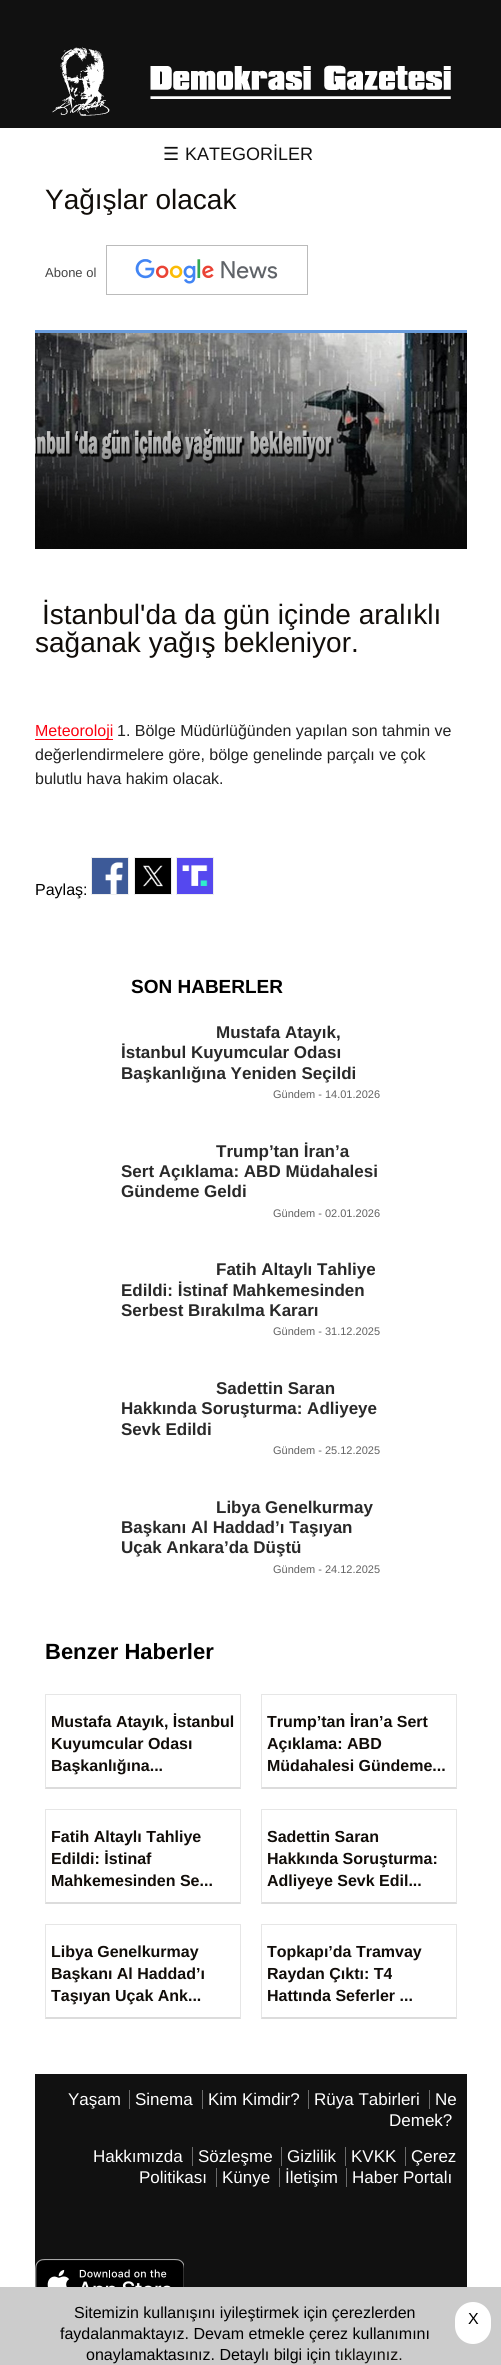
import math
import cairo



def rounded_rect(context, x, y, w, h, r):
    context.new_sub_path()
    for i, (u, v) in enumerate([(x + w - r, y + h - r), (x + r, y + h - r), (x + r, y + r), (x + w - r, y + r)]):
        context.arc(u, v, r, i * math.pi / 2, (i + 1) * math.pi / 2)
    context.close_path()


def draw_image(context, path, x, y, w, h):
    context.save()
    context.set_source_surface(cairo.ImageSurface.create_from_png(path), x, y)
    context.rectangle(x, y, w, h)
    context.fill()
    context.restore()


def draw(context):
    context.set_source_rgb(1, 1, 1)
    context.paint()
    context.set_source_rgb(17 / 255, 17 / 255, 17 / 255)
    context.rectangle(0, 0, 501, 128)
    context.fill()
    draw_image(context, "images/1.png", 52, 47, 399, 69)
    context.rectangle(106.5, 245.5, 201, 49)
    context.set_source_rgb(187 / 255, 187 / 255, 187 / 255)
    context.set_line_width(1)
    context.stroke()
    draw_image(context, "images/2.png", 135, 259, 143, 25)
    context.set_source_rgb(105 / 255, 156 / 255, 221 / 255)
    context.rectangle(35, 330, 432, 3)
    context.fill()
    draw_image(context, "images/3.png", 35, 333, 432, 216)
    context.set_source_rgb(251 / 255, 0, 15 / 255)
    context.rectangle(35, 739, 78, 1)
    context.fill()
    context.rectangle(91.5, 857.5, 37, 37)
    context.set_source_rgb(238 / 255, 238 / 255, 238 / 255)
    context.stroke()
    draw_image(context, "images/4.png", 92, 858, 36, 36)
    context.rectangle(134.5, 857.5, 37, 37)
    context.stroke()
    context.rectangle(176.5, 857.5, 37, 37)
    context.stroke()
    draw_image(context, "images/5.png", 135, 858, 36, 36)
    draw_image(context, "images/6.png", 177, 858, 36, 36)
    context.set_source_rgb(230 / 255, 230 / 255, 230 / 255)
    context.new_path()
    context.move_to(45, 1694)
    context.line_to(241, 1694)
    context.line_to(240, 1695)
    context.line_to(46, 1695)
    context.close_path()
    context.fill()
    context.set_source_rgba(0, 0, 0, 0.1)
    context.new_path()
    context.move_to(241, 1694)
    context.line_to(241, 1789)
    context.line_to(240, 1787)
    context.line_to(240, 1695)
    context.close_path()
    context.fill()
    context.set_source_rgba(80 / 255, 80 / 255, 80 / 255, 0.2)
    context.new_path()
    context.move_to(241, 1789)
    context.line_to(45, 1789)
    context.line_to(46, 1787)
    context.line_to(240, 1787)
    context.close_path()
    context.fill()
    context.set_source_rgba(0, 0, 0, 0.1)
    context.new_path()
    context.move_to(45, 1789)
    context.line_to(45, 1694)
    context.line_to(46, 1695)
    context.line_to(46, 1787)
    context.close_path()
    context.fill()
    context.set_source_rgb(230 / 255, 230 / 255, 230 / 255)
    context.new_path()
    context.move_to(261, 1694)
    context.line_to(457, 1694)
    context.line_to(456, 1695)
    context.line_to(262, 1695)
    context.close_path()
    context.fill()
    context.set_source_rgba(0, 0, 0, 0.1)
    context.new_path()
    context.move_to(457, 1694)
    context.line_to(457, 1789)
    context.line_to(456, 1787)
    context.line_to(456, 1695)
    context.close_path()
    context.fill()
    context.set_source_rgba(80 / 255, 80 / 255, 80 / 255, 0.2)
    context.new_path()
    context.move_to(457, 1789)
    context.line_to(261, 1789)
    context.line_to(262, 1787)
    context.line_to(456, 1787)
    context.close_path()
    context.fill()
    context.set_source_rgba(0, 0, 0, 0.1)
    context.new_path()
    context.move_to(261, 1789)
    context.line_to(261, 1694)
    context.line_to(262, 1695)
    context.line_to(262, 1787)
    context.close_path()
    context.fill()
    context.set_source_rgb(230 / 255, 230 / 255, 230 / 255)
    context.new_path()
    context.move_to(45, 1809)
    context.line_to(241, 1809)
    context.line_to(240, 1810)
    context.line_to(46, 1810)
    context.close_path()
    context.fill()
    context.set_source_rgba(0, 0, 0, 0.1)
    context.new_path()
    context.move_to(241, 1809)
    context.line_to(241, 1904)
    context.line_to(240, 1902)
    context.line_to(240, 1810)
    context.close_path()
    context.fill()
    context.set_source_rgba(80 / 255, 80 / 255, 80 / 255, 0.2)
    context.new_path()
    context.move_to(241, 1904)
    context.line_to(45, 1904)
    context.line_to(46, 1902)
    context.line_to(240, 1902)
    context.close_path()
    context.fill()
    context.set_source_rgba(0, 0, 0, 0.1)
    context.new_path()
    context.move_to(45, 1904)
    context.line_to(45, 1809)
    context.line_to(46, 1810)
    context.line_to(46, 1902)
    context.close_path()
    context.fill()
    context.set_source_rgb(230 / 255, 230 / 255, 230 / 255)
    context.new_path()
    context.move_to(261, 1809)
    context.line_to(457, 1809)
    context.line_to(456, 1810)
    context.line_to(262, 1810)
    context.close_path()
    context.fill()
    context.set_source_rgba(0, 0, 0, 0.1)
    context.new_path()
    context.move_to(457, 1809)
    context.line_to(457, 1904)
    context.line_to(456, 1902)
    context.line_to(456, 1810)
    context.close_path()
    context.fill()
    context.set_source_rgba(80 / 255, 80 / 255, 80 / 255, 0.2)
    context.new_path()
    context.move_to(457, 1904)
    context.line_to(261, 1904)
    context.line_to(262, 1902)
    context.line_to(456, 1902)
    context.close_path()
    context.fill()
    context.set_source_rgba(0, 0, 0, 0.1)
    context.new_path()
    context.move_to(261, 1904)
    context.line_to(261, 1809)
    context.line_to(262, 1810)
    context.line_to(262, 1902)
    context.close_path()
    context.fill()
    context.set_source_rgb(230 / 255, 230 / 255, 230 / 255)
    context.new_path()
    context.move_to(45, 1924)
    context.line_to(241, 1924)
    context.line_to(240, 1925)
    context.line_to(46, 1925)
    context.close_path()
    context.fill()
    context.set_source_rgba(0, 0, 0, 0.1)
    context.new_path()
    context.move_to(241, 1924)
    context.line_to(241, 2019)
    context.line_to(240, 2017)
    context.line_to(240, 1925)
    context.close_path()
    context.fill()
    context.set_source_rgba(80 / 255, 80 / 255, 80 / 255, 0.2)
    context.new_path()
    context.move_to(241, 2019)
    context.line_to(45, 2019)
    context.line_to(46, 2017)
    context.line_to(240, 2017)
    context.close_path()
    context.fill()
    context.set_source_rgba(0, 0, 0, 0.1)
    context.new_path()
    context.move_to(45, 2019)
    context.line_to(45, 1924)
    context.line_to(46, 1925)
    context.line_to(46, 2017)
    context.close_path()
    context.fill()
    context.set_source_rgb(230 / 255, 230 / 255, 230 / 255)
    context.new_path()
    context.move_to(261, 1924)
    context.line_to(457, 1924)
    context.line_to(456, 1925)
    context.line_to(262, 1925)
    context.close_path()
    context.fill()
    context.set_source_rgba(0, 0, 0, 0.1)
    context.new_path()
    context.move_to(457, 1924)
    context.line_to(457, 2019)
    context.line_to(456, 2017)
    context.line_to(456, 1925)
    context.close_path()
    context.fill()
    context.set_source_rgba(80 / 255, 80 / 255, 80 / 255, 0.2)
    context.new_path()
    context.move_to(457, 2019)
    context.line_to(261, 2019)
    context.line_to(262, 2017)
    context.line_to(456, 2017)
    context.close_path()
    context.fill()
    context.set_source_rgba(0, 0, 0, 0.1)
    context.new_path()
    context.move_to(261, 2019)
    context.line_to(261, 1924)
    context.line_to(262, 1925)
    context.line_to(262, 2017)
    context.close_path()
    context.fill()
    context.set_source_rgb(17 / 255, 17 / 255, 17 / 255)
    context.rectangle(35, 2074, 432, 213)
    context.fill()
    context.set_source_rgb(107 / 255, 107 / 255, 107 / 255)
    context.rectangle(129, 2090, 1, 19)
    context.fill()
    context.rectangle(202, 2090, 1, 19)
    context.fill()
    context.rectangle(308, 2090, 1, 19)
    context.fill()
    context.rectangle(429, 2090, 1, 19)
    context.fill()
    context.rectangle(192, 2147, 1, 19)
    context.fill()
    context.rectangle(281, 2147, 1, 19)
    context.fill()
    context.rectangle(345, 2147, 1, 19)
    context.fill()
    context.rectangle(405, 2147, 1, 19)
    context.fill()
    context.rectangle(216, 2168, 1, 19)
    context.fill()
    context.rectangle(279, 2168, 1, 19)
    context.fill()
    context.rectangle(346, 2168, 1, 19)
    context.fill()
    draw_image(context, "images/7.png", 35, 2259, 149, 28)
    context.set_source_rgb(204 / 255, 204 / 255, 204 / 255)
    context.rectangle(0, 2287, 501, 78)
    context.fill()
    context.set_source_rgb(1, 1, 1)
    rounded_rect(context, 455, 2302, 36, 42, 18)
    context.fill()
    context.select_font_face("DejaVu Sans")
    context.set_font_size(18)
    context.set_source_rgb(17 / 255, 17 / 255, 17 / 255)
    context.move_to(163, 160)
    context.show_text("☰")
    context.select_font_face("Liberation Sans")
    context.move_to(185, 160)
    context.show_text("KATEGORİLER")
    context.set_font_size(28)
    context.set_source_rgb(17 / 255, 13 / 255, 9 / 255)
    context.move_to(45, 209)
    context.show_text("Yağışlar olacak")
    context.set_font_size(13)
    context.set_source_rgb(68 / 255, 68 / 255, 68 / 255)
    context.move_to(45, 277)
    context.show_text("Abone ol")
    context.set_font_size(28)
    context.set_source_rgb(17 / 255, 13 / 255, 9 / 255)
    context.move_to(42, 624)
    context.show_text("İstanbul'da da gün içinde aralıklı")
    context.move_to(35, 652)
    context.show_text("sağanak yağış bekleniyor.")
    context.set_font_size(16)
    context.set_source_rgb(251 / 255, 0, 15 / 255)
    context.move_to(35, 736)
    context.show_text("Meteoroloji")
    context.set_source_rgb(33 / 255, 33 / 255, 33 / 255)
    context.move_to(117, 736)
    context.show_text("1. Bölge Müdürlüğünden yapılan son tahmin ve")
    context.move_to(35, 760)
    context.show_text("değerlendirmelere göre, bölge genelinde parçalı ve çok")
    context.move_to(35, 784)
    context.show_text("bulutlu hava hakim olacak.")
    context.set_source_rgb(0, 0, 0)
    context.move_to(35, 895)
    context.show_text("Paylaş:")
    context.select_font_face("Liberation Sans", cairo.FontSlant.NORMAL, cairo.FontWeight.BOLD)
    context.set_font_size(19)
    context.move_to(131, 993)
    context.show_text("SON HABERLER")
    context.set_font_size(17)
    context.set_source_rgb(41 / 255, 41 / 255, 41 / 255)
    context.move_to(216, 1038)
    context.show_text("Mustafa Atayık,")
    context.move_to(121, 1058)
    context.show_text("İstanbul Kuyumcular Odası")
    context.move_to(121, 1079)
    context.show_text("Başkanlığına Yeniden Seçildi")
    context.select_font_face("Liberation Sans")
    context.set_font_size(11)
    context.set_source_rgb(98 / 255, 98 / 255, 98 / 255)
    context.move_to(273, 1098)
    context.show_text("Gündem - 14.01.2026")
    context.select_font_face("Liberation Sans", cairo.FontSlant.NORMAL, cairo.FontWeight.BOLD)
    context.set_font_size(17)
    context.set_source_rgb(41 / 255, 41 / 255, 41 / 255)
    context.move_to(216, 1157)
    context.show_text("Trump’tan İran’a")
    context.move_to(121, 1177)
    context.show_text("Sert Açıklama: ABD Müdahalesi")
    context.move_to(121, 1197)
    context.show_text("Gündeme Geldi")
    context.select_font_face("Liberation Sans")
    context.set_font_size(11)
    context.set_source_rgb(98 / 255, 98 / 255, 98 / 255)
    context.move_to(273, 1217)
    context.show_text("Gündem - 02.01.2026")
    context.select_font_face("Liberation Sans", cairo.FontSlant.NORMAL, cairo.FontWeight.BOLD)
    context.set_font_size(17)
    context.set_source_rgb(41 / 255, 41 / 255, 41 / 255)
    context.move_to(216, 1275)
    context.show_text("Fatih Altaylı Tahliye")
    context.move_to(121, 1296)
    context.show_text("Edildi: İstinaf Mahkemesinden")
    context.move_to(121, 1316)
    context.show_text("Serbest Bırakılma Kararı")
    context.select_font_face("Liberation Sans")
    context.set_font_size(11)
    context.set_source_rgb(98 / 255, 98 / 255, 98 / 255)
    context.move_to(273, 1335)
    context.show_text("Gündem - 31.12.2025")
    context.select_font_face("Liberation Sans", cairo.FontSlant.NORMAL, cairo.FontWeight.BOLD)
    context.set_font_size(17)
    context.set_source_rgb(41 / 255, 41 / 255, 41 / 255)
    context.move_to(216, 1394)
    context.show_text("Sadettin Saran")
    context.move_to(121, 1414)
    context.show_text("Hakkında Soruşturma: Adliyeye")
    context.move_to(121, 1435)
    context.show_text("Sevk Edildi")
    context.select_font_face("Liberation Sans")
    context.set_font_size(11)
    context.set_source_rgb(98 / 255, 98 / 255, 98 / 255)
    context.move_to(273, 1454)
    context.show_text("Gündem - 25.12.2025")
    context.select_font_face("Liberation Sans", cairo.FontSlant.NORMAL, cairo.FontWeight.BOLD)
    context.set_font_size(17)
    context.set_source_rgb(41 / 255, 41 / 255, 41 / 255)
    context.move_to(216, 1513)
    context.show_text("Libya Genelkurmay")
    context.move_to(121, 1533)
    context.show_text("Başkanı Al Haddad’ı Taşıyan")
    context.move_to(121, 1553)
    context.show_text("Uçak Ankara’da Düştü")
    context.select_font_face("Liberation Sans")
    context.set_font_size(11)
    context.set_source_rgb(98 / 255, 98 / 255, 98 / 255)
    context.move_to(273, 1573)
    context.show_text("Gündem - 24.12.2025")
    context.select_font_face("Liberation Sans", cairo.FontSlant.NORMAL, cairo.FontWeight.BOLD)
    context.set_font_size(22)
    context.set_source_rgb(0, 0, 0)
    context.move_to(45, 1659)
    context.show_text("Benzer Haberler")
    context.set_font_size(16)
    context.set_source_rgb(17 / 255, 13 / 255, 9 / 255)
    context.move_to(51, 1727)
    context.show_text("Mustafa Atayık, İstanbul")
    context.move_to(51, 1749)
    context.show_text("Kuyumcular Odası")
    context.move_to(51, 1771)
    context.show_text("Başkanlığına...")
    context.move_to(267, 1727)
    context.show_text("Trump’tan İran’a Sert")
    context.move_to(267, 1749)
    context.show_text("Açıklama: ABD")
    context.move_to(267, 1771)
    context.show_text("Müdahalesi Gündeme...")
    context.move_to(51, 1842)
    context.show_text("Fatih Altaylı Tahliye")
    context.move_to(51, 1864)
    context.show_text("Edildi: İstinaf")
    context.move_to(51, 1886)
    context.show_text("Mahkemesinden Se...")
    context.move_to(267, 1842)
    context.show_text("Sadettin Saran")
    context.move_to(267, 1864)
    context.show_text("Hakkında Soruşturma:")
    context.move_to(267, 1886)
    context.show_text("Adliyeye Sevk Edil...")
    context.move_to(51, 1957)
    context.show_text("Libya Genelkurmay")
    context.move_to(51, 1979)
    context.show_text("Başkanı Al Haddad’ı")
    context.move_to(51, 2001)
    context.show_text("Taşıyan Uçak Ank...")
    context.move_to(267, 1957)
    context.show_text("Topkapı’da Tramvay")
    context.move_to(267, 1979)
    context.show_text("Raydan Çıktı: T4")
    context.move_to(267, 2001)
    context.show_text("Hattında Seferler ...")
    context.select_font_face("Liberation Sans")
    context.set_font_size(17)
    context.set_source_rgb(1, 1, 1)
    context.move_to(68, 2105)
    context.show_text("Yaşam")
    context.move_to(135, 2105)
    context.show_text("Sinema")
    context.move_to(208, 2105)
    context.show_text("Kim Kimdir?")
    context.move_to(314, 2105)
    context.show_text("Rüya Tabirleri")
    context.move_to(435, 2105)
    context.show_text("Ne")
    context.move_to(389, 2126)
    context.show_text("Demek?")
    context.move_to(93, 2162)
    context.show_text("Hakkımızda")
    context.move_to(198, 2162)
    context.show_text("Sözleşme")
    context.move_to(287, 2162)
    context.show_text("Gizlilik")
    context.move_to(351, 2162)
    context.show_text("KVKK")
    context.move_to(411, 2162)
    context.show_text("Çerez")
    context.move_to(139, 2183)
    context.show_text("Politikası")
    context.move_to(222, 2183)
    context.show_text("Künye")
    context.move_to(285, 2183)
    context.show_text("İletişim")
    context.move_to(352, 2183)
    context.show_text("Haber Portalı")
    context.set_font_size(16)
    context.set_source_rgb(0, 0, 0)
    context.move_to(74, 2318)
    context.show_text("Sitemizin kullanışını iyileştirmek için çerezlerden")
    context.move_to(60, 2339)
    context.show_text("faydalanmaktayız. Devam etmekle çerez kullanımını")
    context.move_to(86, 2360)
    context.show_text("onaylamaktasınız. Detaylı bilgi için")
    context.set_source_rgb(17 / 255, 13 / 255, 9 / 255)
    context.move_to(335, 2360)
    context.show_text("tıklayınız.")
    context.set_source_rgb(0, 0, 0)
    context.move_to(468, 2324)
    context.show_text("X")


surface = cairo.ImageSurface(cairo.Format.RGB24, 501, 2365)
context = cairo.Context(surface)
options = cairo.FontOptions()
options.set_hint_metrics(cairo.HintMetrics.OFF)
options.set_hint_style(cairo.HintStyle.NONE)
context.set_font_options(options)
context.set_miter_limit(4)
draw(context)
surface.write_to_png("out.png")
